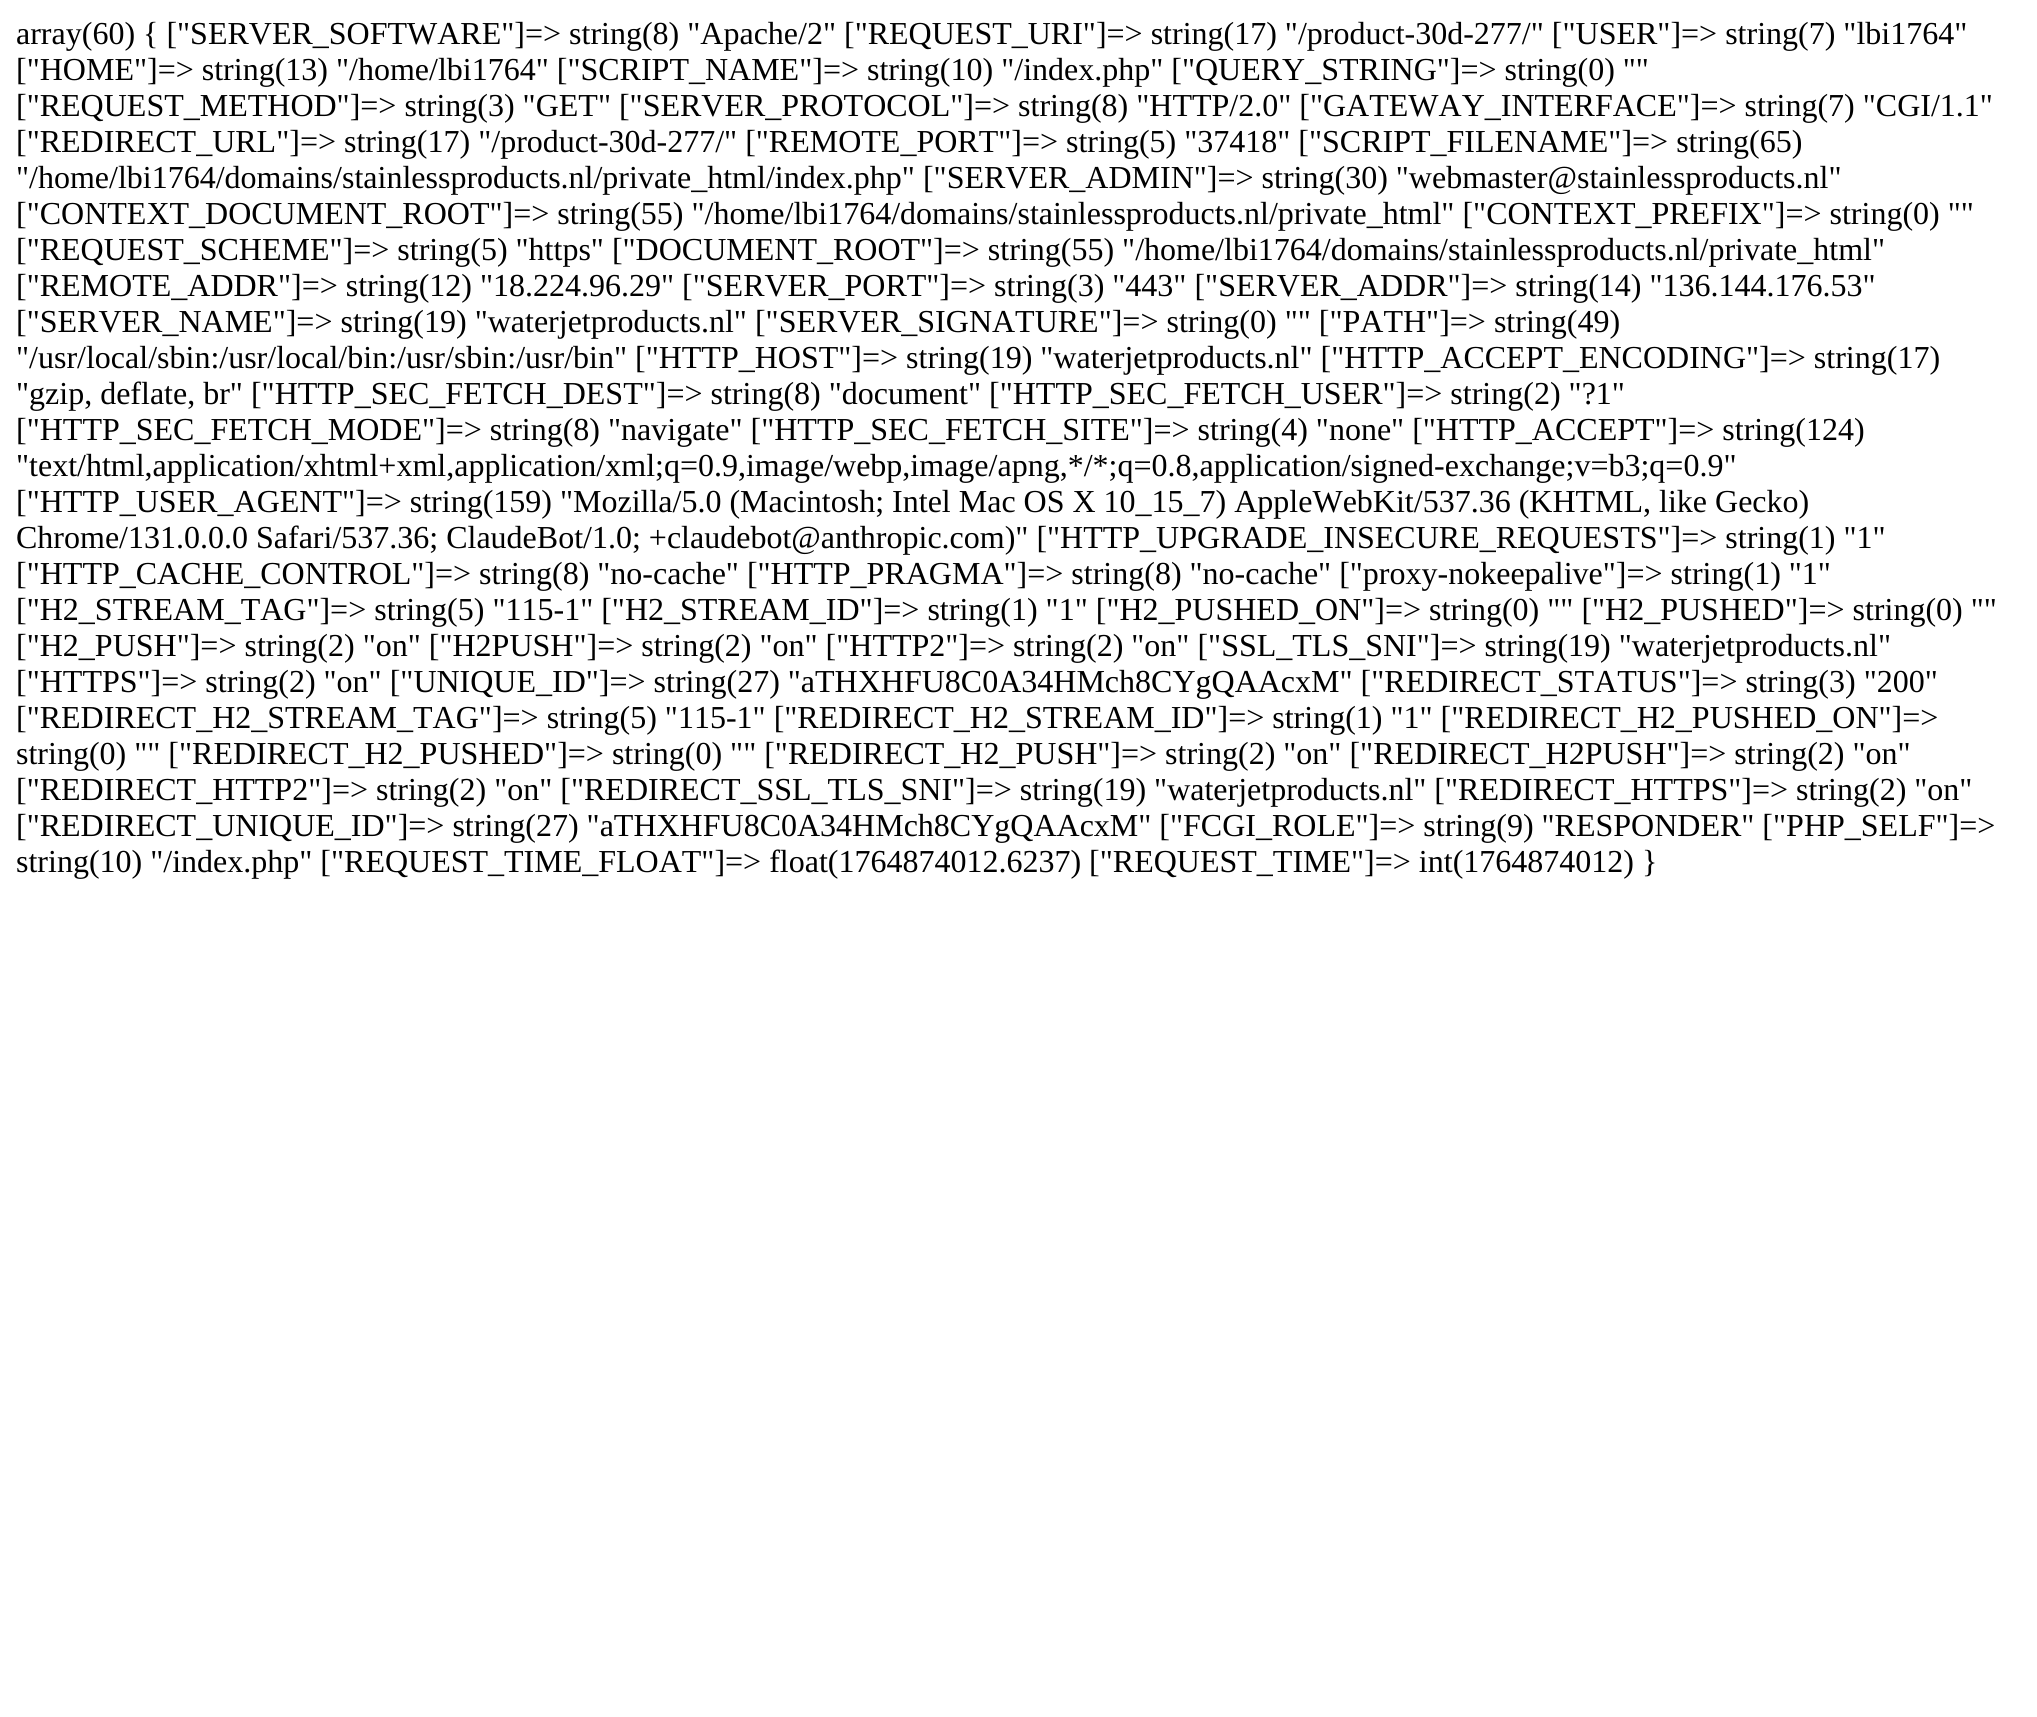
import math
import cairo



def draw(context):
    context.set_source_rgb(1, 1, 1)
    context.paint()
    context.select_font_face("Liberation Serif")
    context.set_font_size(32)
    context.set_source_rgb(0, 0, 0)
    context.move_to(16, 44)
    context.show_text("array(60) { [\"SERVER_SOFTWARE\"]=> string(8) \"Apache/2\" [\"REQUEST_URI\"]=> string(17) \"/product-30d-277/\" [\"USER\"]=> string(7) \"lbi1764\"")
    context.move_to(16, 80)
    context.show_text("[\"HOME\"]=> string(13) \"/home/lbi1764\" [\"SCRIPT_NAME\"]=> string(10) \"/index.php\" [\"QUERY_STRING\"]=> string(0) \"\"")
    context.move_to(16, 116)
    context.show_text("[\"REQUEST_METHOD\"]=> string(3) \"GET\" [\"SERVER_PROTOCOL\"]=> string(8) \"HTTP/2.0\" [\"GATEWAY_INTERFACE\"]=> string(7) \"CGI/1.1\"")
    context.move_to(16, 152)
    context.show_text("[\"REDIRECT_URL\"]=> string(17) \"/product-30d-277/\" [\"REMOTE_PORT\"]=> string(5) \"37418\" [\"SCRIPT_FILENAME\"]=> string(65)")
    context.move_to(16, 188)
    context.show_text("\"/home/lbi1764/domains/stainlessproducts.nl/private_html/index.php\" [\"SERVER_ADMIN\"]=> string(30) \"webmaster@stainlessproducts.nl\"")
    context.move_to(16, 224)
    context.show_text("[\"CONTEXT_DOCUMENT_ROOT\"]=> string(55) \"/home/lbi1764/domains/stainlessproducts.nl/private_html\" [\"CONTEXT_PREFIX\"]=> string(0) \"\"")
    context.move_to(16, 260)
    context.show_text("[\"REQUEST_SCHEME\"]=> string(5) \"https\" [\"DOCUMENT_ROOT\"]=> string(55) \"/home/lbi1764/domains/stainlessproducts.nl/private_html\"")
    context.move_to(16, 296)
    context.show_text("[\"REMOTE_ADDR\"]=> string(12) \"18.224.96.29\" [\"SERVER_PORT\"]=> string(3) \"443\" [\"SERVER_ADDR\"]=> string(14) \"136.144.176.53\"")
    context.move_to(16, 332)
    context.show_text("[\"SERVER_NAME\"]=> string(19) \"waterjetproducts.nl\" [\"SERVER_SIGNATURE\"]=> string(0) \"\" [\"PATH\"]=> string(49)")
    context.move_to(16, 368)
    context.show_text("\"/usr/local/sbin:/usr/local/bin:/usr/sbin:/usr/bin\" [\"HTTP_HOST\"]=> string(19) \"waterjetproducts.nl\" [\"HTTP_ACCEPT_ENCODING\"]=> string(17)")
    context.move_to(16, 404)
    context.show_text("\"gzip, deflate, br\" [\"HTTP_SEC_FETCH_DEST\"]=> string(8) \"document\" [\"HTTP_SEC_FETCH_USER\"]=> string(2) \"?1\"")
    context.move_to(16, 440)
    context.show_text("[\"HTTP_SEC_FETCH_MODE\"]=> string(8) \"navigate\" [\"HTTP_SEC_FETCH_SITE\"]=> string(4) \"none\" [\"HTTP_ACCEPT\"]=> string(124)")
    context.move_to(16, 476)
    context.show_text("\"text/html,application/xhtml+xml,application/xml;q=0.9,image/webp,image/apng,*/*;q=0.8,application/signed-exchange;v=b3;q=0.9\"")
    context.move_to(16, 512)
    context.show_text("[\"HTTP_USER_AGENT\"]=> string(159) \"Mozilla/5.0 (Macintosh; Intel Mac OS X 10_15_7) AppleWebKit/537.36 (KHTML, like Gecko)")
    context.move_to(16, 548)
    context.show_text("Chrome/131.0.0.0 Safari/537.36; ClaudeBot/1.0; +claudebot@anthropic.com)\" [\"HTTP_UPGRADE_INSECURE_REQUESTS\"]=> string(1) \"1\"")
    context.move_to(16, 584)
    context.show_text("[\"HTTP_CACHE_CONTROL\"]=> string(8) \"no-cache\" [\"HTTP_PRAGMA\"]=> string(8) \"no-cache\" [\"proxy-nokeepalive\"]=> string(1) \"1\"")
    context.move_to(16, 620)
    context.show_text("[\"H2_STREAM_TAG\"]=> string(5) \"115-1\" [\"H2_STREAM_ID\"]=> string(1) \"1\" [\"H2_PUSHED_ON\"]=> string(0) \"\" [\"H2_PUSHED\"]=> string(0) \"\"")
    context.move_to(16, 656)
    context.show_text("[\"H2_PUSH\"]=> string(2) \"on\" [\"H2PUSH\"]=> string(2) \"on\" [\"HTTP2\"]=> string(2) \"on\" [\"SSL_TLS_SNI\"]=> string(19) \"waterjetproducts.nl\"")
    context.move_to(16, 692)
    context.show_text("[\"HTTPS\"]=> string(2) \"on\" [\"UNIQUE_ID\"]=> string(27) \"aTHXHFU8C0A34HMch8CYgQAAcxM\" [\"REDIRECT_STATUS\"]=> string(3) \"200\"")
    context.move_to(16, 728)
    context.show_text("[\"REDIRECT_H2_STREAM_TAG\"]=> string(5) \"115-1\" [\"REDIRECT_H2_STREAM_ID\"]=> string(1) \"1\" [\"REDIRECT_H2_PUSHED_ON\"]=>")
    context.move_to(16, 764)
    context.show_text("string(0) \"\" [\"REDIRECT_H2_PUSHED\"]=> string(0) \"\" [\"REDIRECT_H2_PUSH\"]=> string(2) \"on\" [\"REDIRECT_H2PUSH\"]=> string(2) \"on\"")
    context.move_to(16, 800)
    context.show_text("[\"REDIRECT_HTTP2\"]=> string(2) \"on\" [\"REDIRECT_SSL_TLS_SNI\"]=> string(19) \"waterjetproducts.nl\" [\"REDIRECT_HTTPS\"]=> string(2) \"on\"")
    context.move_to(16, 836)
    context.show_text("[\"REDIRECT_UNIQUE_ID\"]=> string(27) \"aTHXHFU8C0A34HMch8CYgQAAcxM\" [\"FCGI_ROLE\"]=> string(9) \"RESPONDER\" [\"PHP_SELF\"]=>")
    context.move_to(16, 872)
    context.show_text("string(10) \"/index.php\" [\"REQUEST_TIME_FLOAT\"]=> float(1764874012.6237) [\"REQUEST_TIME\"]=> int(1764874012) }")


surface = cairo.ImageSurface(cairo.Format.RGB24, 2037, 1717)
context = cairo.Context(surface)
options = cairo.FontOptions()
options.set_hint_metrics(cairo.HintMetrics.OFF)
options.set_hint_style(cairo.HintStyle.NONE)
context.set_font_options(options)
context.set_miter_limit(4)
draw(context)
surface.write_to_png("out.png")
